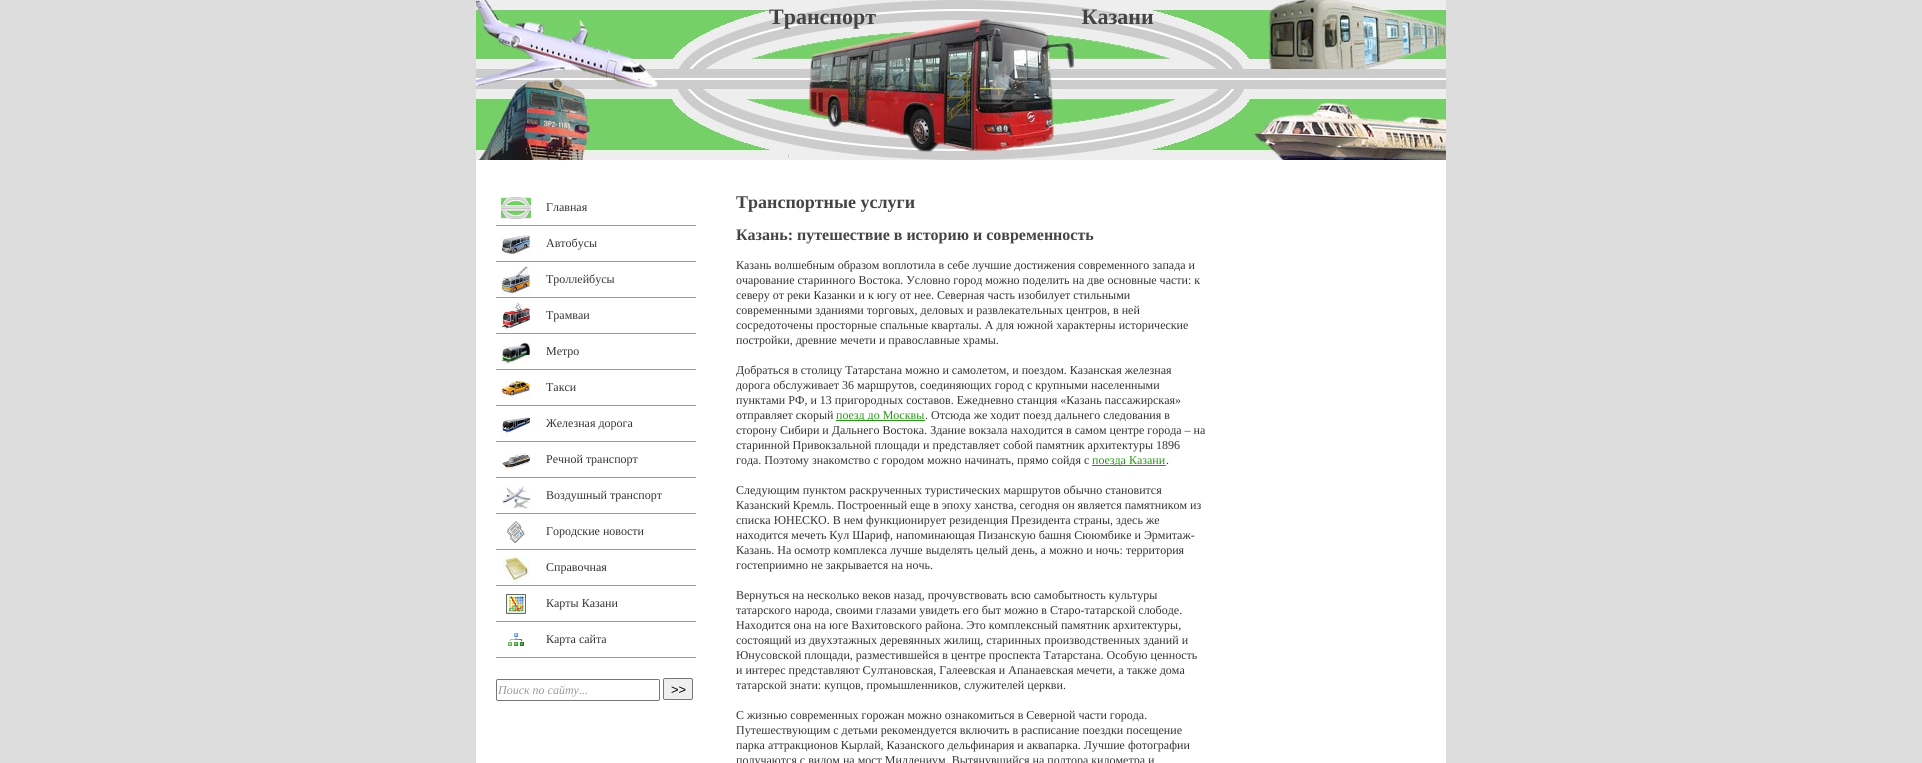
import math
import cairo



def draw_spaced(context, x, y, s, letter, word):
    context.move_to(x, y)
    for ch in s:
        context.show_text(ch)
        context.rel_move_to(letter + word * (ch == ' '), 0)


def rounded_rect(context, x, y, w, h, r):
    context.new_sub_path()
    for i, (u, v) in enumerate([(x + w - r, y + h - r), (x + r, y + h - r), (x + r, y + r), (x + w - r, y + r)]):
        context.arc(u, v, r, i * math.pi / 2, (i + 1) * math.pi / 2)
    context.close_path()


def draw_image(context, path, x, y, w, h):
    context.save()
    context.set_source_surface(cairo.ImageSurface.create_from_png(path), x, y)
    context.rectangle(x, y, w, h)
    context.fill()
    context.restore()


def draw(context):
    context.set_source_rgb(221 / 255, 221 / 255, 221 / 255)
    context.paint()
    context.set_source_rgb(1, 1, 1)
    context.rectangle(476, 160, 970, 603)
    context.fill()
    draw_image(context, "images/1.png", 476, 0, 970, 160)
    context.set_source_rgb(1, 102 / 255, 136 / 255)
    context.rectangle(496, 225, 200, 1)
    context.fill()
    draw_image(context, "images/2.png", 501, 197, 30, 22)
    context.rectangle(496, 261, 200, 1)
    context.fill()
    draw_image(context, "images/3.png", 501, 235, 30, 21)
    context.rectangle(496, 297, 200, 1)
    context.fill()
    draw_image(context, "images/4.png", 501, 266, 30, 29)
    context.rectangle(496, 333, 200, 1)
    context.fill()
    draw_image(context, "images/5.png", 501, 302, 30, 29)
    context.rectangle(496, 369, 200, 1)
    context.fill()
    draw_image(context, "images/6.png", 501, 342, 30, 23)
    context.rectangle(496, 405, 200, 1)
    context.fill()
    draw_image(context, "images/7.png", 501, 380, 30, 21)
    context.rectangle(496, 441, 200, 1)
    context.fill()
    draw_image(context, "images/8.png", 501, 417, 30, 21)
    context.rectangle(496, 477, 200, 1)
    context.fill()
    draw_image(context, "images/9.png", 501, 451, 30, 20)
    context.rectangle(496, 513, 200, 1)
    context.fill()
    draw_image(context, "images/10.png", 502, 486, 29, 23)
    context.rectangle(496, 549, 200, 1)
    context.fill()
    draw_image(context, "images/11.png", 507, 521, 18, 22)
    context.rectangle(496, 585, 200, 1)
    context.fill()
    draw_image(context, "images/12.png", 503, 557, 26, 26)
    context.rectangle(496, 621, 200, 1)
    context.fill()
    draw_image(context, "images/13.png", 506, 594, 20, 20)
    context.rectangle(496, 657, 200, 1)
    context.fill()
    draw_image(context, "images/14.png", 508, 633, 16, 13)
    rounded_rect(context, 496.5, 679.5, 163, 21, 1.5)
    context.set_source_rgb(118 / 255, 118 / 255, 118 / 255)
    context.set_line_width(1)
    context.stroke()
    context.set_source_rgb(239 / 255, 239 / 255, 239 / 255)
    rounded_rect(context, 663.5, 678.5, 29, 21, 1.5)
    context.fill_preserve()
    context.set_source_rgb(118 / 255, 118 / 255, 118 / 255)
    context.stroke()
    context.set_source_rgb(34 / 255, 153 / 255, 17 / 255)
    context.rectangle(836, 420, 89, 1)
    context.fill()
    context.rectangle(1092, 465, 74, 1)
    context.fill()
    context.select_font_face("Liberation Serif", cairo.FontSlant.NORMAL, cairo.FontWeight.BOLD)
    context.set_font_size(22)
    context.set_source_rgb(68 / 255, 68 / 255, 68 / 255)
    draw_spaced(context, 769, 24, "Транспорт Казани", 0, 200)
    context.select_font_face("Liberation Serif")
    context.set_font_size(12)
    context.set_source_rgb(51 / 255, 51 / 255, 51 / 255)
    context.move_to(546, 211)
    context.show_text("Главная")
    context.move_to(546, 247)
    context.show_text("Автобусы")
    context.move_to(546, 283)
    context.show_text("Троллейбусы")
    context.move_to(546, 319)
    context.show_text("Трамваи")
    context.move_to(546, 355)
    context.show_text("Метро")
    context.move_to(546, 391)
    context.show_text("Такси")
    context.move_to(546, 427)
    context.show_text("Железная дорога")
    context.move_to(546, 463)
    context.show_text("Речной транспорт")
    context.move_to(546, 499)
    context.show_text("Воздушный транспорт")
    context.move_to(546, 535)
    context.show_text("Городские новости")
    context.move_to(546, 571)
    context.show_text("Справочная")
    context.move_to(546, 607)
    context.show_text("Карты Казани")
    context.move_to(546, 643)
    context.show_text("Карта сайта")
    context.select_font_face("Liberation Serif", cairo.FontSlant.ITALIC)
    context.set_source_rgb(153 / 255, 153 / 255, 153 / 255)
    context.move_to(498, 694)
    context.show_text("Поиск по сайту...")
    context.select_font_face("Liberation Sans")
    context.set_font_size(13)
    context.set_source_rgb(0, 0, 0)
    context.move_to(671, 694)
    context.show_text(">>")
    context.select_font_face("Liberation Serif", cairo.FontSlant.NORMAL, cairo.FontWeight.BOLD)
    context.set_font_size(18)
    context.set_source_rgb(68 / 255, 68 / 255, 68 / 255)
    context.move_to(736, 208)
    context.show_text("Транспортные услуги")
    context.set_font_size(16)
    context.move_to(736, 240)
    context.show_text("Казань: путешествие в историю и современность")
    context.select_font_face("Liberation Serif")
    context.set_font_size(12)
    context.set_source_rgb(51 / 255, 51 / 255, 51 / 255)
    context.move_to(736, 269)
    context.show_text("Казань волшебным образом воплотила в себе лучшие достижения современного запада и")
    context.move_to(736, 284)
    context.show_text("очарование старинного Востока. Условно город можно поделить на две основные части: к")
    context.move_to(736, 299)
    context.show_text("северу от реки Казанки и к югу от нее. Северная часть изобилует стильными")
    context.move_to(736, 314)
    context.show_text("современными зданиями торговых, деловых и развлекательных центров, в ней")
    context.move_to(736, 329)
    context.show_text("сосредоточены просторные спальные кварталы. А для южной характерны исторические")
    context.move_to(736, 344)
    context.show_text("постройки, древние мечети и православные храмы.")
    context.move_to(736, 374)
    context.show_text("Добраться в столицу Татарстана можно и самолетом, и поездом. Казанская железная")
    context.move_to(736, 389)
    context.show_text("дорога обслуживает 36 маршрутов, соединяющих город с крупными населенными")
    context.move_to(736, 404)
    context.show_text("пунктами РФ, и 13 пригородных составов. Ежедневно станция «Казань пассажирская»")
    context.move_to(736, 419)
    context.show_text("отправляет скорый")
    context.set_source_rgb(34 / 255, 153 / 255, 17 / 255)
    context.move_to(836, 419)
    context.show_text("поезд до Москвы")
    context.set_source_rgb(51 / 255, 51 / 255, 51 / 255)
    context.move_to(925, 419)
    context.show_text(". Отсюда же ходит поезд дальнего следования в")
    context.move_to(736, 434)
    context.show_text("сторону Сибири и Дальнего Востока. Здание вокзала находится в самом центре города – на")
    context.move_to(736, 449)
    context.show_text("старинной Привокзальной площади и представляет собой памятник архитектуры 1896")
    context.move_to(736, 464)
    context.show_text("года. Поэтому знакомство с городом можно начинать, прямо сойдя с")
    context.set_source_rgb(34 / 255, 153 / 255, 17 / 255)
    context.move_to(1092, 464)
    context.show_text("поезда Казани")
    context.set_source_rgb(51 / 255, 51 / 255, 51 / 255)
    context.move_to(1166, 464)
    context.show_text(".")
    context.move_to(736, 494)
    context.show_text("Следующим пунктом раскрученных туристических маршрутов обычно становится")
    context.move_to(736, 509)
    context.show_text("Казанский Кремль. Построенный еще в эпоху ханства, сегодня он является памятником из")
    context.move_to(736, 524)
    context.show_text("списка ЮНЕСКО. В нем функционирует резиденция Президента страны, здесь же")
    context.move_to(736, 539)
    context.show_text("находится мечеть Кул Шариф, напоминающая Пизанскую башня Сююмбике и Эрмитаж-")
    context.move_to(736, 554)
    context.show_text("Казань. На осмотр комплекса лучше выделять целый день, а можно и ночь: территория")
    context.move_to(736, 569)
    context.show_text("гостеприимно не закрывается на ночь.")
    context.move_to(736, 599)
    context.show_text("Вернуться на несколько веков назад, прочувствовать всю самобытность культуры")
    context.move_to(736, 614)
    context.show_text("татарского народа, своими глазами увидеть его быт можно в Старо-татарской слободе.")
    context.move_to(736, 629)
    context.show_text("Находится она на юге Вахитовского района. Это комплексный памятник архитектуры,")
    context.move_to(736, 644)
    context.show_text("состоящий из двухэтажных деревянных жилищ, старинных производственных зданий и")
    context.move_to(736, 659)
    context.show_text("Юнусовской площади, разместившейся в центре проспекта Татарстана. Особую ценность")
    context.move_to(736, 674)
    context.show_text("и интерес представляют Султановская, Галеевская и Апанаевская мечети, а также дома")
    context.move_to(736, 689)
    context.show_text("татарской знати: купцов, промышленников, служителей церкви.")
    context.move_to(736, 719)
    context.show_text("С жизнью современных горожан можно ознакомиться в Северной части города.")
    context.move_to(736, 734)
    context.show_text("Путешествующим с детьми рекомендуется включить в расписание поездки посещение")
    context.move_to(736, 749)
    context.show_text("парка аттракционов Кырлай, Казанского дельфинария и аквапарка. Лучшие фотографии")
    context.move_to(736, 764)
    context.show_text("получаются с видом на мост Миллениум. Вытянувшийся на полтора километра и")


surface = cairo.ImageSurface(cairo.Format.RGB24, 1922, 763)
context = cairo.Context(surface)
options = cairo.FontOptions()
options.set_hint_metrics(cairo.HintMetrics.OFF)
options.set_hint_style(cairo.HintStyle.NONE)
context.set_font_options(options)
context.set_miter_limit(4)
draw(context)
surface.write_to_png("out.png")
